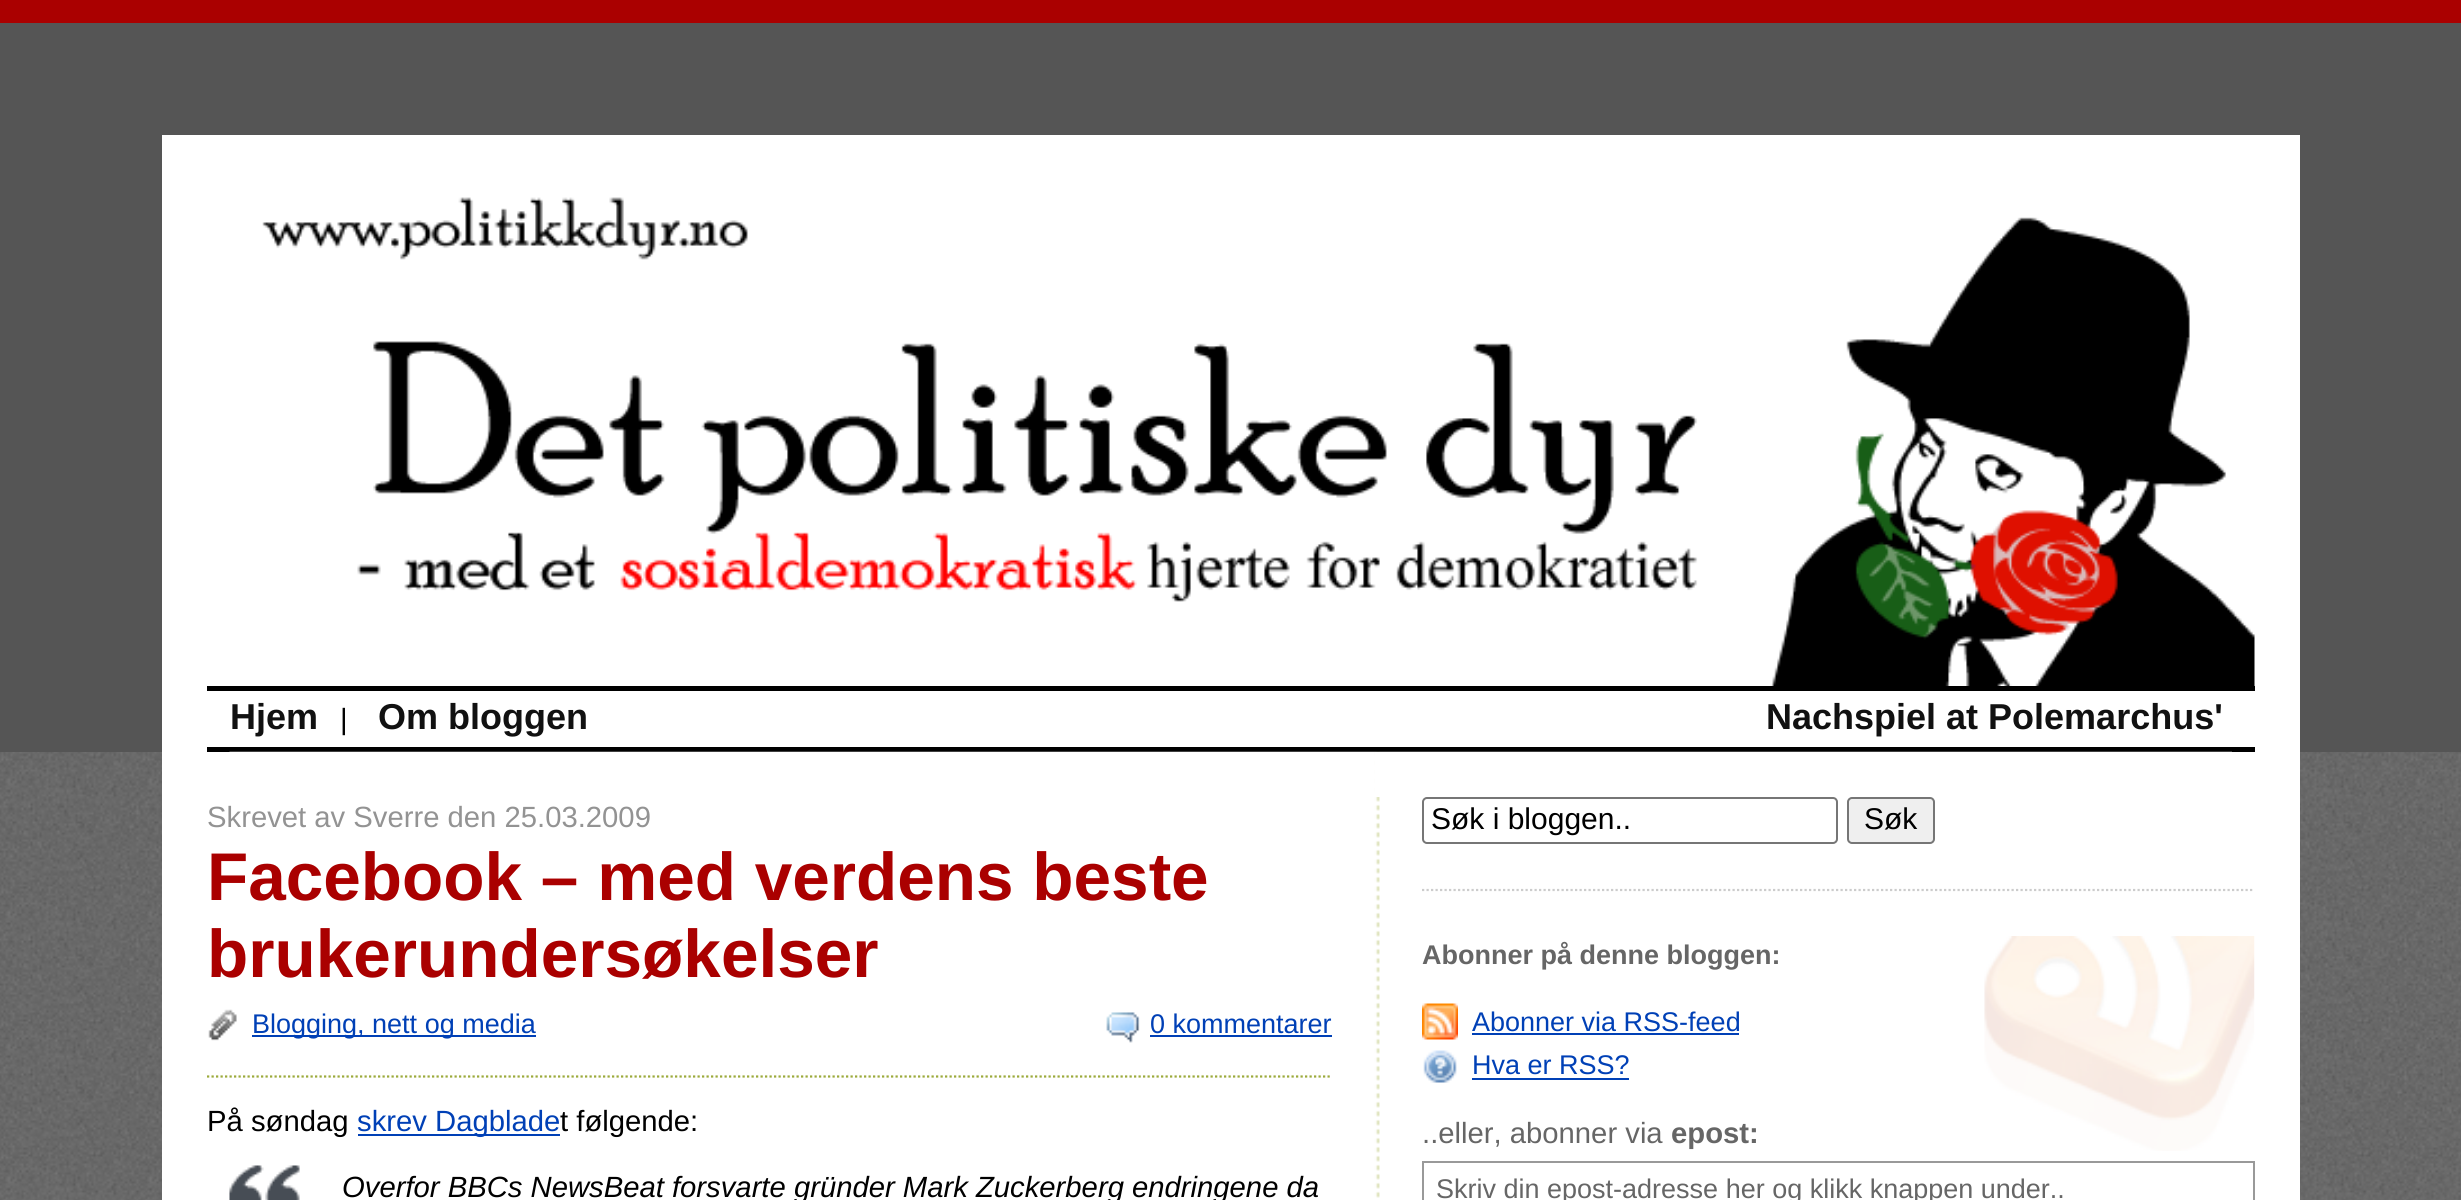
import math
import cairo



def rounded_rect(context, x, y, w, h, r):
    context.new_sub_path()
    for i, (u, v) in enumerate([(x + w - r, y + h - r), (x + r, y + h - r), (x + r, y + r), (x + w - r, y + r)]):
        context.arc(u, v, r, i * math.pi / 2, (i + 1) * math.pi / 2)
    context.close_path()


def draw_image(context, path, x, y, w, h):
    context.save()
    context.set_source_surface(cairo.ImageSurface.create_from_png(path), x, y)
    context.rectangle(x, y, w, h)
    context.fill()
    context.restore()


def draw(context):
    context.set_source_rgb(1, 1, 1)
    context.paint()
    draw_image(context, "images/1.png", 0, 752, 2461, 448)
    context.set_source_rgb(85 / 255, 85 / 255, 85 / 255)
    context.rectangle(0, 23, 2461, 729)
    context.fill()
    context.set_source_rgb(170 / 255, 0, 0)
    context.rectangle(0, 0, 2461, 23)
    context.fill()
    context.set_source_rgb(1, 1, 1)
    context.rectangle(162, 135, 2138, 1065)
    context.fill()
    draw_image(context, "images/2.png", 262, 197, 1993, 489)
    context.set_source_rgb(0, 0, 0)
    context.rectangle(207, 686, 2048, 5)
    context.fill()
    context.rectangle(207, 747, 2048, 5)
    context.fill()
    draw_image(context, "images/3.png", 229, 751, 2003, 447)
    context.set_source_rgb(1, 1, 1)
    context.rectangle(1375, 752, 5, 45)
    context.fill()
    context.new_path()
    context.move_to(207, 1076.5)
    context.line_to(1332, 1076.5)
    context.set_source_rgb(156 / 255, 170 / 255, 59 / 255)
    context.set_line_width(2.2)
    context.set_dash([2.25, 2.25])
    context.stroke()
    draw_image(context, "images/4.png", 208, 1009, 29, 32)
    context.set_source_rgb(0, 64 / 255, 182 / 255)
    context.rectangle(252, 1035, 284, 2)
    context.fill()
    draw_image(context, "images/5.png", 1106, 1012, 34, 31)
    context.rectangle(1150, 1035, 182, 2)
    context.fill()
    context.rectangle(358, 1134, 202, 2)
    context.fill()
    draw_image(context, "images/6.png", 229, 1165, 71, 35)
    context.new_path()
    context.move_to(1422, 890)
    context.line_to(2254.5, 890)
    context.set_source_rgb(204 / 255, 204 / 255, 204 / 255)
    context.stroke()
    rounded_rect(context, 1423, 798, 414, 45, 4)
    context.set_source_rgb(118 / 255, 118 / 255, 118 / 255)
    context.set_line_width(2)
    context.set_dash([])
    context.stroke()
    context.set_source_rgb(239 / 255, 239 / 255, 239 / 255)
    rounded_rect(context, 1848, 798, 86, 45, 4)
    context.fill_preserve()
    context.set_source_rgb(118 / 255, 118 / 255, 118 / 255)
    context.stroke()
    draw_image(context, "images/7.png", 1984, 936, 271, 215)
    draw_image(context, "images/8.png", 1422, 1003, 36, 37)
    context.set_source_rgb(0, 64 / 255, 182 / 255)
    context.rectangle(1472, 1033, 267, 2)
    context.fill()
    draw_image(context, "images/9.png", 1423, 1050, 34, 33)
    context.rectangle(1472, 1078, 157, 2)
    context.fill()
    context.rectangle(1423, 1162, 831, 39)
    context.set_source_rgb(153 / 255, 153 / 255, 153 / 255)
    context.stroke()
    context.select_font_face("Liberation Sans", cairo.FontSlant.NORMAL, cairo.FontWeight.BOLD)
    context.set_font_size(36)
    context.set_source_rgb(17 / 255, 17 / 255, 17 / 255)
    context.move_to(230, 729)
    context.show_text("Hjem")
    context.select_font_face("Liberation Sans")
    context.set_font_size(29.25)
    context.set_source_rgb(0, 0, 0)
    context.move_to(340, 729)
    context.show_text("|")
    context.select_font_face("Liberation Sans", cairo.FontSlant.NORMAL, cairo.FontWeight.BOLD)
    context.set_font_size(36)
    context.set_source_rgb(17 / 255, 17 / 255, 17 / 255)
    context.move_to(378, 729)
    context.show_text("Om bloggen")
    context.move_to(1766, 729)
    context.show_text("Nachspiel at Polemarchus'")
    context.select_font_face("Liberation Sans")
    context.set_font_size(29.25)
    context.set_source_rgb(147 / 255, 147 / 255, 147 / 255)
    context.move_to(207, 827)
    context.show_text("Skrevet av Sverre den 25.03.2009")
    context.select_font_face("Liberation Sans", cairo.FontSlant.NORMAL, cairo.FontWeight.BOLD)
    context.set_font_size(67.5)
    context.set_source_rgb(170 / 255, 0, 0)
    context.move_to(207, 900)
    context.show_text("Facebook – med verdens beste")
    context.move_to(207, 977)
    context.show_text("brukerundersøkelser")
    context.select_font_face("Liberation Sans")
    context.set_font_size(27)
    context.set_source_rgb(0, 64 / 255, 182 / 255)
    context.move_to(252, 1033)
    context.show_text("Blogging, nett og media")
    context.move_to(1150, 1033)
    context.show_text("0 kommentarer")
    context.set_font_size(29.25)
    context.set_source_rgb(0, 0, 0)
    context.move_to(207, 1131)
    context.show_text("På søndag")
    context.set_source_rgb(0, 64 / 255, 182 / 255)
    context.move_to(357, 1131)
    context.show_text("skrev Dagblade")
    context.set_source_rgb(0, 0, 0)
    context.move_to(560, 1131)
    context.show_text("t følgende:")
    context.select_font_face("Liberation Sans", cairo.FontSlant.ITALIC)
    context.move_to(342, 1197)
    context.show_text("Overfor BBCs NewsBeat forsvarte gründer Mark Zuckerberg endringene da")
    context.select_font_face("Liberation Sans")
    context.set_font_size(30)
    context.move_to(1431, 829)
    context.show_text("Søk i bloggen..")
    context.move_to(1864, 829)
    context.show_text("Søk")
    context.select_font_face("Liberation Sans", cairo.FontSlant.NORMAL, cairo.FontWeight.BOLD)
    context.set_font_size(27)
    context.set_source_rgb(102 / 255, 102 / 255, 102 / 255)
    context.move_to(1422, 964)
    context.show_text("Abonner på denne bloggen:")
    context.select_font_face("Liberation Sans")
    context.set_source_rgb(0, 64 / 255, 182 / 255)
    context.move_to(1472, 1031)
    context.show_text("Abonner via RSS-feed")
    context.move_to(1472, 1074)
    context.show_text("Hva er RSS?")
    context.set_font_size(29.25)
    context.set_source_rgb(102 / 255, 102 / 255, 102 / 255)
    context.move_to(1422, 1143)
    context.show_text("..eller, abonner via")
    context.select_font_face("Liberation Sans", cairo.FontSlant.NORMAL, cairo.FontWeight.BOLD)
    context.move_to(1671, 1143)
    context.show_text("epost:")
    context.select_font_face("Liberation Sans")
    context.set_font_size(27)
    context.move_to(1436, 1198)
    context.show_text("Skriv din epost-adresse her og klikk knappen under..")


surface = cairo.ImageSurface(cairo.Format.RGB24, 2461, 1200)
context = cairo.Context(surface)
options = cairo.FontOptions()
options.set_hint_metrics(cairo.HintMetrics.OFF)
options.set_hint_style(cairo.HintStyle.NONE)
context.set_font_options(options)
context.set_miter_limit(4)
draw(context)
surface.write_to_png("out.png")
